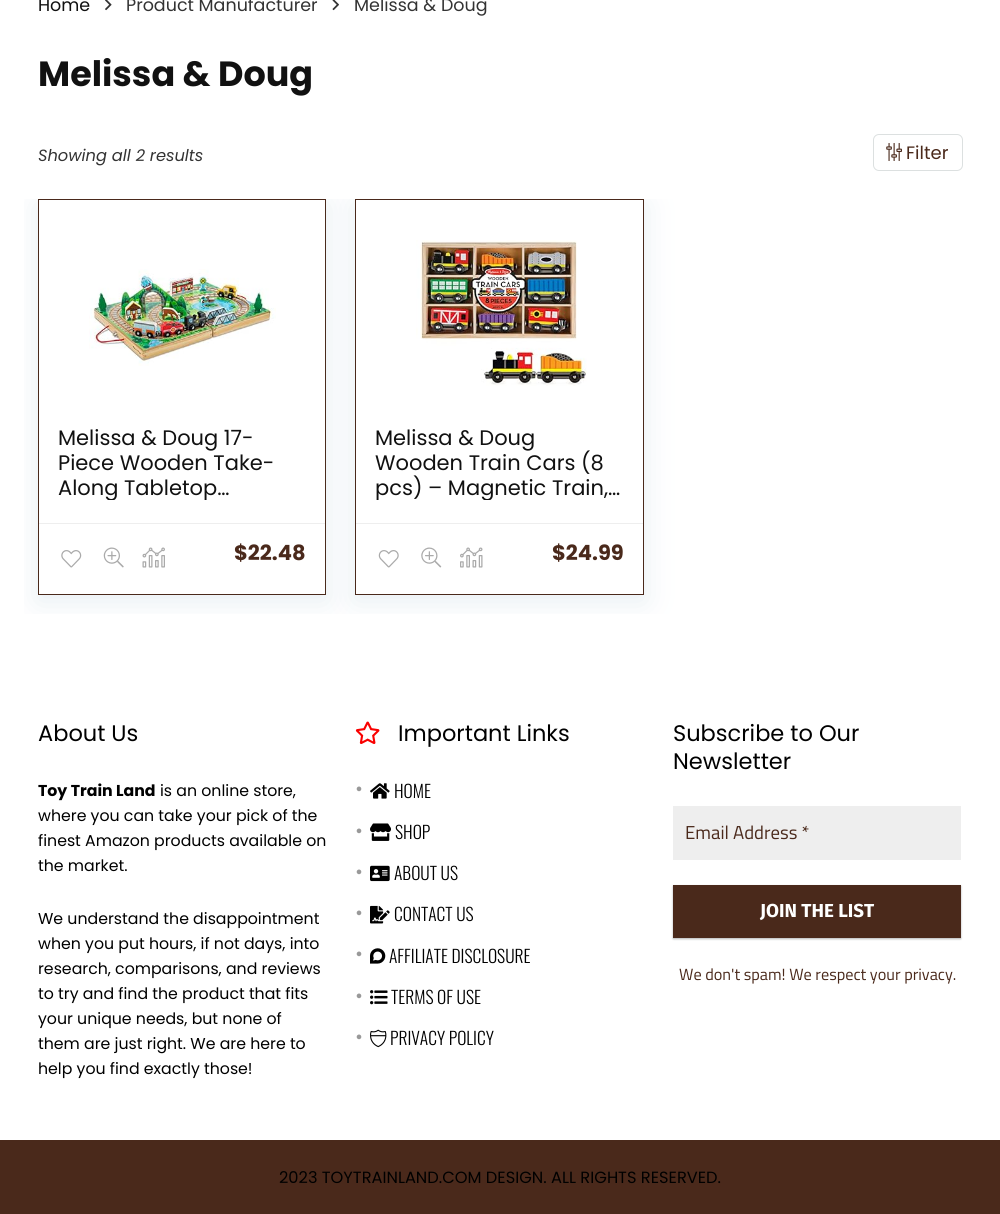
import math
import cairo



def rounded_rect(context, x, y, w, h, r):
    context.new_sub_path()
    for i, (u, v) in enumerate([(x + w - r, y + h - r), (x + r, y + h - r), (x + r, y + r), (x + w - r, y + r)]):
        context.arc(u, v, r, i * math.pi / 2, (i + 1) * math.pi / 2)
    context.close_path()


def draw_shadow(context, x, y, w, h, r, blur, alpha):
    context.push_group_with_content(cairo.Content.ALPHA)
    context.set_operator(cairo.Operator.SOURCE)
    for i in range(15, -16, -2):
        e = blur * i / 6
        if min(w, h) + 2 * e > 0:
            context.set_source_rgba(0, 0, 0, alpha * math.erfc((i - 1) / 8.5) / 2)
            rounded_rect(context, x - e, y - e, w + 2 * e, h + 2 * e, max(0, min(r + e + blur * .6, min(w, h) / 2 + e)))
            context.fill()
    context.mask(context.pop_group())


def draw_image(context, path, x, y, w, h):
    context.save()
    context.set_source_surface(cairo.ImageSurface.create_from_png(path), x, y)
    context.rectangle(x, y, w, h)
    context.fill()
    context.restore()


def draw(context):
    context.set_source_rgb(1, 1, 1)
    context.paint()
    draw_image(context, "images/1.png", 105, 0, 7, 11)
    draw_image(context, "images/2.png", 332, 0, 7, 11)
    rounded_rect(context, 873.5, 134.5, 89, 36, 5.5)
    context.set_source_rgb(220 / 255, 224 / 255, 224 / 255)
    context.set_line_width(1)
    context.stroke()
    draw_image(context, "images/3.png", 886, 143, 16, 18)
    context.save()
    context.rectangle(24, 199, 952, 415)
    context.clip()
    context.set_fill_rule(cairo.FillRule.EVEN_ODD)
    context.new_path()
    context.move_to(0, 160)
    context.line_to(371, 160)
    context.line_to(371, 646)
    context.line_to(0, 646)
    context.close_path()
    context.move_to(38, 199)
    context.line_to(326, 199)
    context.line_to(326, 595)
    context.line_to(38, 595)
    context.close_path()
    context.clip()
    context.set_source_rgb(188 / 255, 207 / 255, 219 / 255)
    draw_shadow(context, 38, 205, 288, 396, 0, 14.5, 0.35)
    context.restore()
    context.rectangle(38.5, 199.5, 287, 395)
    context.set_source_rgb(74 / 255, 41 / 255, 27 / 255)
    context.stroke()
    draw_image(context, "images/4.png", 89, 269, 187, 97)
    context.set_source_rgb(238 / 255, 238 / 255, 238 / 255)
    context.rectangle(39, 523, 286, 1)
    context.fill()
    draw_image(context, "images/5.png", 61, 550, 21, 18)
    draw_image(context, "images/6.png", 103, 547, 21, 21)
    draw_image(context, "images/7.png", 142, 547, 23, 21)
    context.save()
    context.rectangle(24, 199, 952, 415)
    context.clip()
    context.set_source_rgb(188 / 255, 207 / 255, 219 / 255)
    draw_shadow(context, 355, 205, 289, 396, 0, 14.5, 0.35)
    context.restore()
    context.set_source_rgb(1, 1, 1)
    context.rectangle(355.5, 199.5, 288, 395)
    context.fill_preserve()
    context.set_source_rgb(74 / 255, 41 / 255, 27 / 255)
    context.stroke()
    draw_image(context, "images/8.png", 416, 240, 171, 146)
    context.set_source_rgb(238 / 255, 238 / 255, 238 / 255)
    context.rectangle(356, 523, 287, 1)
    context.fill()
    draw_image(context, "images/9.png", 378, 550, 21, 18)
    draw_image(context, "images/10.png", 421, 547, 21, 21)
    draw_image(context, "images/11.png", 460, 547, 23, 21)
    draw_image(context, "images/12.png", 355, 721, 25, 23)
    draw_image(context, "images/13.png", 370, 783, 20, 16)
    draw_image(context, "images/14.png", 370, 823, 21, 18)
    draw_image(context, "images/15.png", 370, 865, 20, 17)
    draw_image(context, "images/16.png", 370, 905, 20, 19)
    draw_image(context, "images/17.png", 370, 948, 16, 16)
    draw_image(context, "images/18.png", 370, 990, 18, 15)
    draw_image(context, "images/19.png", 370, 1029, 17, 19)
    context.rectangle(673, 806, 288, 54)
    context.fill()
    context.set_source_rgb(0, 0, 0)
    draw_shadow(context, 673, 886, 288, 53, 0, 1, 0.08)
    context.set_source_rgb(60 / 255, 64 / 255, 67 / 255)
    draw_shadow(context, 673, 886, 288, 53, 0, 1, 0.3)
    context.set_source_rgb(74 / 255, 41 / 255, 27 / 255)
    context.rectangle(673, 885, 288, 53)
    context.fill()
    context.rectangle(0, 1140, 1000, 74)
    context.fill()
    context.select_font_face("Poppins")
    context.set_font_size(17.5)
    context.set_source_rgb(17 / 255, 17 / 255, 17 / 255)
    context.move_to(38, 11)
    context.show_text("Home")
    context.set_source_rgb(51 / 255, 51 / 255, 51 / 255)
    context.move_to(126, 11)
    context.show_text("Product Manufacturer")
    context.move_to(354, 11)
    context.show_text("Melissa & Doug")
    context.select_font_face("Poppins", cairo.FontSlant.NORMAL, cairo.FontWeight.BOLD)
    context.set_font_size(35)
    context.set_source_rgb(17 / 255, 17 / 255, 17 / 255)
    context.move_to(38, 86)
    context.show_text("Melissa & Doug")
    context.select_font_face("Poppins", cairo.FontSlant.ITALIC)
    context.set_font_size(16.25)
    context.set_source_rgb(51 / 255, 51 / 255, 51 / 255)
    context.move_to(38, 161)
    context.show_text("Showing all 2 results")
    context.select_font_face("Poppins")
    context.set_font_size(18)
    context.set_source_rgb(74 / 255, 41 / 255, 27 / 255)
    context.move_to(906, 159)
    context.show_text("Filter")
    context.set_font_size(21)
    context.set_source_rgb(17 / 255, 17 / 255, 17 / 255)
    context.move_to(58, 445)
    context.show_text("Melissa & Doug 17-")
    context.move_to(58, 470)
    context.show_text("Piece Wooden Take-")
    context.save()
    context.rectangle(58, 425, 248, 75)
    context.clip()
    context.move_to(58, 495)
    context.show_text("Along Tabletop…")
    context.restore()
    context.select_font_face("Poppins", cairo.FontSlant.NORMAL, cairo.FontWeight.BOLD)
    context.set_source_rgb(74 / 255, 41 / 255, 27 / 255)
    context.move_to(234, 560)
    context.show_text("$22.48")
    context.select_font_face("Poppins")
    context.set_source_rgb(17 / 255, 17 / 255, 17 / 255)
    context.move_to(375, 445)
    context.show_text("Melissa & Doug")
    context.move_to(375, 470)
    context.show_text("Wooden Train Cars (8")
    context.save()
    context.rectangle(375, 425, 249, 75)
    context.clip()
    context.move_to(375, 495)
    context.show_text("pcs) – Magnetic Train,…")
    context.restore()
    context.select_font_face("Poppins", cairo.FontSlant.NORMAL, cairo.FontWeight.BOLD)
    context.set_source_rgb(74 / 255, 41 / 255, 27 / 255)
    context.move_to(552, 560)
    context.show_text("$24.99")
    context.select_font_face("Poppins")
    context.set_font_size(22.5)
    context.set_source_rgb(0, 0, 0)
    context.move_to(38, 741)
    context.show_text("About Us")
    context.select_font_face("Poppins", cairo.FontSlant.NORMAL, cairo.FontWeight.BOLD)
    context.set_font_size(15.75)
    context.move_to(38, 796)
    context.show_text("Toy Train Land")
    context.select_font_face("Poppins")
    context.move_to(160, 796)
    context.show_text("is an online store,")
    context.move_to(38, 821)
    context.show_text("where you can take your pick of the")
    context.move_to(38, 846)
    context.show_text("finest Amazon products available on")
    context.move_to(38, 871)
    context.show_text("the market.")
    context.move_to(38, 924)
    context.show_text("We understand the disappointment")
    context.move_to(38, 949)
    context.show_text("when you put hours, if not days, into")
    context.move_to(38, 974)
    context.show_text("research, comparisons, and reviews")
    context.move_to(38, 999)
    context.show_text("to try and find the product that fits")
    context.move_to(38, 1024)
    context.show_text("your unique needs, but none of")
    context.move_to(38, 1049)
    context.show_text("them are just right. We are here to")
    context.move_to(38, 1074)
    context.show_text("help you find exactly those!")
    context.set_font_size(22.5)
    context.move_to(398, 741)
    context.show_text("Important Links")
    context.set_font_size(38)
    context.set_source_rgb(153 / 255, 153 / 255, 153 / 255)
    context.move_to(355, 791)
    context.show_text(".")
    context.select_font_face("Oswald Light")
    context.set_font_size(17.5)
    context.set_source_rgb(0, 0, 0)
    context.move_to(394, 798)
    context.show_text("HOME")
    context.select_font_face("Poppins")
    context.set_font_size(38)
    context.set_source_rgb(153 / 255, 153 / 255, 153 / 255)
    context.move_to(355, 833)
    context.show_text(".")
    context.select_font_face("Oswald Light")
    context.set_font_size(17.5)
    context.set_source_rgb(0, 0, 0)
    context.move_to(395, 839)
    context.show_text("SHOP")
    context.select_font_face("Poppins")
    context.set_font_size(38)
    context.set_source_rgb(153 / 255, 153 / 255, 153 / 255)
    context.move_to(355, 874)
    context.show_text(".")
    context.select_font_face("Oswald Light")
    context.set_font_size(17.5)
    context.set_source_rgb(0, 0, 0)
    context.move_to(394, 880)
    context.show_text("ABOUT US")
    context.select_font_face("Poppins")
    context.set_font_size(38)
    context.set_source_rgb(153 / 255, 153 / 255, 153 / 255)
    context.move_to(355, 915)
    context.show_text(".")
    context.select_font_face("Oswald Light")
    context.set_font_size(17.5)
    context.set_source_rgb(0, 0, 0)
    context.move_to(394, 921)
    context.show_text("CONTACT US")
    context.select_font_face("Poppins")
    context.set_font_size(38)
    context.set_source_rgb(153 / 255, 153 / 255, 153 / 255)
    context.move_to(355, 956)
    context.show_text(".")
    context.select_font_face("Oswald Light")
    context.set_font_size(17.5)
    context.set_source_rgb(0, 0, 0)
    context.move_to(389, 963)
    context.show_text("AFFILIATE DISCLOSURE")
    context.select_font_face("Poppins")
    context.set_font_size(38)
    context.set_source_rgb(153 / 255, 153 / 255, 153 / 255)
    context.move_to(355, 998)
    context.show_text(".")
    context.select_font_face("Oswald Light")
    context.set_font_size(17.5)
    context.set_source_rgb(0, 0, 0)
    context.move_to(391, 1004)
    context.show_text("TERMS OF USE")
    context.select_font_face("Poppins")
    context.set_font_size(38)
    context.set_source_rgb(153 / 255, 153 / 255, 153 / 255)
    context.move_to(355, 1039)
    context.show_text(".")
    context.select_font_face("Oswald Light")
    context.set_font_size(17.5)
    context.set_source_rgb(0, 0, 0)
    context.move_to(390, 1045)
    context.show_text("PRIVACY POLICY")
    context.select_font_face("Poppins")
    context.set_font_size(22.5)
    context.move_to(673, 741)
    context.show_text("Subscribe to Our")
    context.move_to(673, 769)
    context.show_text("Newsletter")
    context.select_font_face("Titillium Web")
    context.set_font_size(18.75)
    context.set_source_rgb(74 / 255, 41 / 255, 27 / 255)
    context.move_to(685, 839)
    context.show_text("Email Address *")
    context.select_font_face("Fira Sans", cairo.FontSlant.NORMAL, cairo.FontWeight.BOLD)
    context.set_source_rgb(1, 1, 1)
    context.move_to(760, 917)
    context.show_text("JOIN THE LIST")
    context.select_font_face("Titillium Web")
    context.set_font_size(16.25)
    context.set_source_rgb(74 / 255, 41 / 255, 27 / 255)
    context.move_to(679, 980)
    context.show_text("We don't spam! We respect your privacy.")
    context.select_font_face("Poppins")
    context.set_source_rgb(0, 0, 0)
    context.move_to(279, 1183)
    context.show_text("2023 TOYTRAINLAND.COM DESIGN. ALL RIGHTS RESERVED.")


surface = cairo.ImageSurface(cairo.Format.RGB24, 1000, 1214)
context = cairo.Context(surface)
options = cairo.FontOptions()
options.set_hint_metrics(cairo.HintMetrics.OFF)
options.set_hint_style(cairo.HintStyle.NONE)
context.set_font_options(options)
context.set_miter_limit(4)
draw(context)
surface.write_to_png("out.png")
